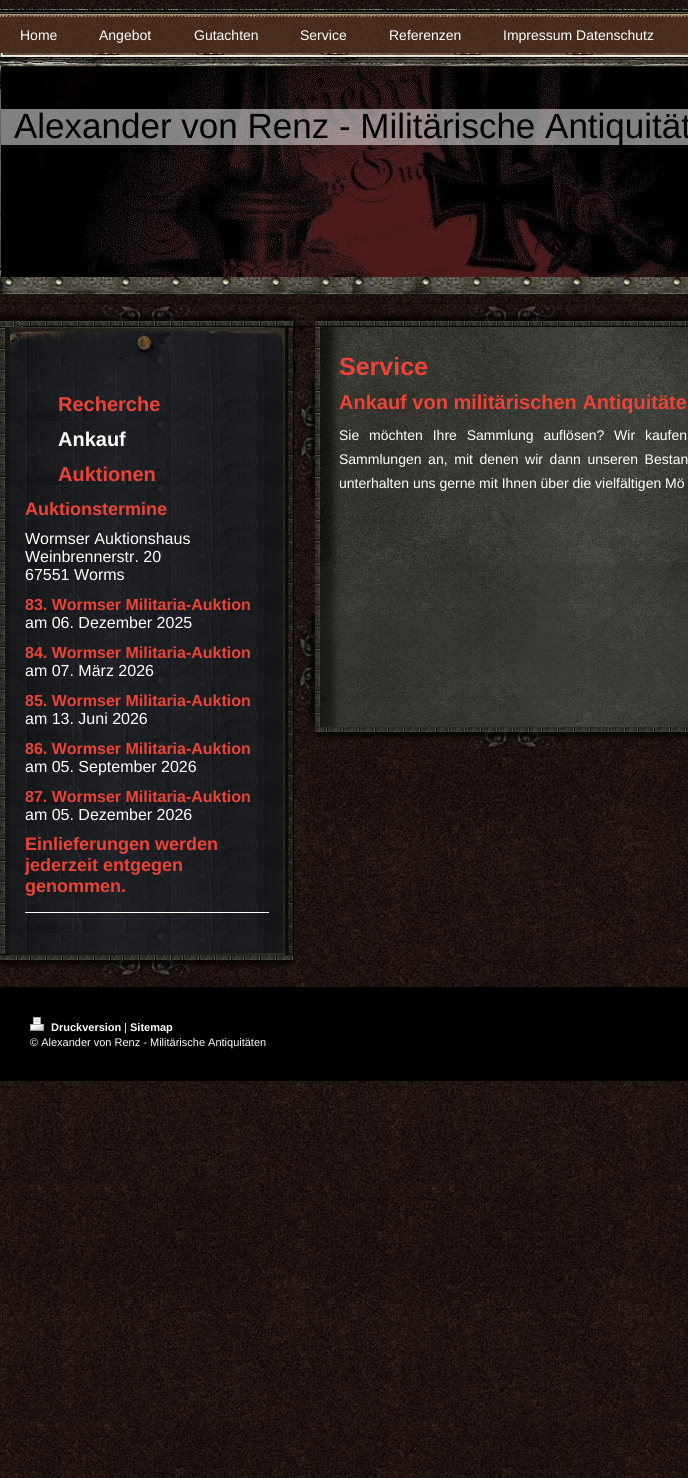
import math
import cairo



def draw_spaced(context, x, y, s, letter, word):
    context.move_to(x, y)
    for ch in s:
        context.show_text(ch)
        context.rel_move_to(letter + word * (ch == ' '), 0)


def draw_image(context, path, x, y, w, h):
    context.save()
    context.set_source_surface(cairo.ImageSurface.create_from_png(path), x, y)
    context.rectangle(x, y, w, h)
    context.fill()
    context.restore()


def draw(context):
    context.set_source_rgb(1, 1, 1)
    context.paint()
    draw_image(context, "images/1.png", 0, 59, 688, 1419)
    draw_image(context, "images/2.png", 0, 0, 688, 17)
    draw_image(context, "images/3.png", 0, 17, 688, 36)
    draw_image(context, "images/4.png", 0, 53, 688, 6)
    draw_image(context, "images/5.png", 0, 60, 688, 234)
    draw_image(context, "images/6.png", 1, 67, 687, 210)
    context.set_source_rgba(1, 1, 1, 0.5)
    context.rectangle(1, 109, 687, 36)
    context.fill()
    draw_image(context, "images/7.png", 0, 302, 688, 2)
    draw_image(context, "images/8.png", 0, 305, 294, 54)
    draw_image(context, "images/9.png", 0, 359, 294, 594)
    context.set_source_rgb(1, 1, 1)
    context.rectangle(25, 912, 244, 1)
    context.fill()
    draw_image(context, "images/10.png", 0, 953, 294, 24)
    context.set_source_rgb(0, 0, 0)
    context.rectangle(294, 326, 394, 1)
    context.fill()
    draw_image(context, "images/11.png", 294, 305, 394, 21)
    draw_image(context, "images/12.png", 294, 327, 394, 400)
    draw_image(context, "images/13.png", 294, 727, 394, 22)
    context.rectangle(0, 987, 688, 94)
    context.fill()
    draw_image(context, "images/14.png", 30, 1017, 14, 14)
    context.select_font_face("Liberation Sans")
    context.set_font_size(14)
    context.set_source_rgb(1, 1, 1)
    context.move_to(20, 40)
    context.show_text("Home")
    context.move_to(99, 40)
    context.show_text("Angebot")
    context.move_to(194, 40)
    context.show_text("Gutachten")
    context.move_to(300, 40)
    context.show_text("Service")
    context.move_to(389, 40)
    context.show_text("Referenzen")
    context.move_to(503, 40)
    context.show_text("Impressum Datenschutz")
    context.set_font_size(35)
    context.set_source_rgb(0, 0, 0)
    context.move_to(14, 138)
    context.show_text("Alexander von Renz - Militärische Antiquität")
    context.select_font_face("Liberation Sans", cairo.FontSlant.NORMAL, cairo.FontWeight.BOLD)
    context.set_font_size(20)
    context.set_source_rgb(237 / 255, 67 / 255, 52 / 255)
    context.move_to(58, 411)
    context.show_text("Recherche")
    context.set_source_rgb(1, 1, 1)
    context.move_to(58, 446)
    context.show_text("Ankauf")
    context.set_source_rgb(237 / 255, 67 / 255, 52 / 255)
    context.move_to(58, 481)
    context.show_text("Auktionen")
    context.set_font_size(18)
    context.move_to(25, 515)
    context.show_text("Auktionstermine")
    context.select_font_face("Liberation Sans")
    context.set_font_size(16)
    context.set_source_rgb(1, 1, 1)
    context.move_to(25, 544)
    context.show_text("Wormser Auktionshaus")
    context.move_to(25, 562)
    context.show_text("Weinbrennerstr. 20")
    context.move_to(25, 580)
    context.show_text("67551 Worms")
    context.select_font_face("Liberation Sans", cairo.FontSlant.NORMAL, cairo.FontWeight.BOLD)
    context.set_source_rgb(237 / 255, 67 / 255, 52 / 255)
    context.move_to(25, 610)
    context.show_text("83. Wormser Militaria-Auktion")
    context.select_font_face("Liberation Sans")
    context.set_source_rgb(1, 1, 1)
    context.move_to(25, 628)
    context.show_text("am 06. Dezember 2025")
    context.select_font_face("Liberation Sans", cairo.FontSlant.NORMAL, cairo.FontWeight.BOLD)
    context.set_source_rgb(237 / 255, 67 / 255, 52 / 255)
    context.move_to(25, 658)
    context.show_text("84. Wormser Militaria-Auktion")
    context.select_font_face("Liberation Sans")
    context.set_source_rgb(1, 1, 1)
    context.move_to(25, 676)
    context.show_text("am 07. März 2026")
    context.select_font_face("Liberation Sans", cairo.FontSlant.NORMAL, cairo.FontWeight.BOLD)
    context.set_source_rgb(237 / 255, 67 / 255, 52 / 255)
    context.move_to(25, 706)
    context.show_text("85. Wormser Militaria-Auktion")
    context.select_font_face("Liberation Sans")
    context.set_source_rgb(1, 1, 1)
    context.move_to(25, 724)
    context.show_text("am 13. Juni 2026")
    context.select_font_face("Liberation Sans", cairo.FontSlant.NORMAL, cairo.FontWeight.BOLD)
    context.set_source_rgb(237 / 255, 67 / 255, 52 / 255)
    context.move_to(25, 754)
    context.show_text("86. Wormser Militaria-Auktion")
    context.select_font_face("Liberation Sans")
    context.set_source_rgb(1, 1, 1)
    context.move_to(25, 772)
    context.show_text("am 05. September 2026")
    context.select_font_face("Liberation Sans", cairo.FontSlant.NORMAL, cairo.FontWeight.BOLD)
    context.set_source_rgb(237 / 255, 67 / 255, 52 / 255)
    context.move_to(25, 802)
    context.show_text("87. Wormser Militaria-Auktion")
    context.select_font_face("Liberation Sans")
    context.set_source_rgb(1, 1, 1)
    context.move_to(25, 820)
    context.show_text("am 05. Dezember 2026")
    context.select_font_face("Liberation Sans", cairo.FontSlant.NORMAL, cairo.FontWeight.BOLD)
    context.set_font_size(18)
    context.set_source_rgb(237 / 255, 67 / 255, 52 / 255)
    context.move_to(25, 850)
    context.show_text("Einlieferungen werden")
    context.move_to(25, 871)
    context.show_text("jederzeit entgegen")
    context.move_to(25, 892)
    context.show_text("genommen.")
    context.set_font_size(25)
    context.move_to(339, 375)
    context.show_text("Service")
    context.set_font_size(20)
    context.move_to(339, 409)
    context.show_text("Ankauf von militärischen Antiquitäte")
    context.select_font_face("Liberation Sans")
    context.set_font_size(14)
    context.set_source_rgb(1, 1, 1)
    draw_spaced(context, 339, 440, "Sie möchten Ihre Sammlung auflösen? Wir kaufen", 0, 6)
    draw_spaced(context, 339, 464, "Sammlungen an, mit denen wir dann unseren Bestan", 0, 2.75)
    context.move_to(339, 488)
    context.show_text("unterhalten uns gerne mit Ihnen über die vielfältigen Mö")
    context.select_font_face("Liberation Sans", cairo.FontSlant.NORMAL, cairo.FontWeight.BOLD)
    context.set_font_size(11)
    context.move_to(51, 1031)
    context.show_text("Druckversion")
    context.select_font_face("Liberation Sans")
    context.move_to(124, 1031)
    context.show_text("|")
    context.select_font_face("Liberation Sans", cairo.FontSlant.NORMAL, cairo.FontWeight.BOLD)
    context.move_to(130, 1031)
    context.show_text("Sitemap")
    context.select_font_face("Liberation Sans")
    context.move_to(30, 1046)
    context.show_text("© Alexander von Renz - Militärische Antiquitäten")


surface = cairo.ImageSurface(cairo.Format.RGB24, 688, 1478)
context = cairo.Context(surface)
options = cairo.FontOptions()
options.set_hint_metrics(cairo.HintMetrics.OFF)
options.set_hint_style(cairo.HintStyle.NONE)
context.set_font_options(options)
context.set_miter_limit(4)
draw(context)
surface.write_to_png("out.png")
